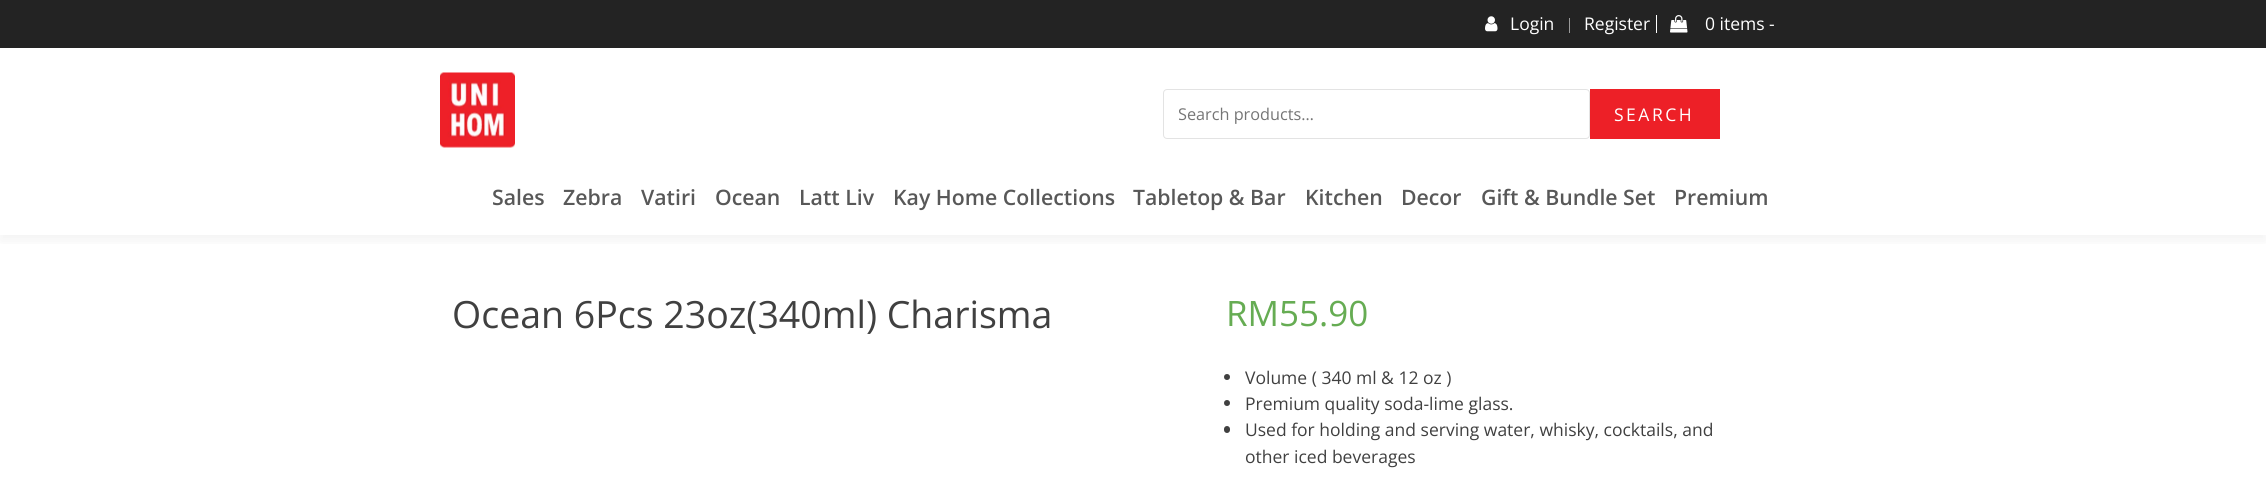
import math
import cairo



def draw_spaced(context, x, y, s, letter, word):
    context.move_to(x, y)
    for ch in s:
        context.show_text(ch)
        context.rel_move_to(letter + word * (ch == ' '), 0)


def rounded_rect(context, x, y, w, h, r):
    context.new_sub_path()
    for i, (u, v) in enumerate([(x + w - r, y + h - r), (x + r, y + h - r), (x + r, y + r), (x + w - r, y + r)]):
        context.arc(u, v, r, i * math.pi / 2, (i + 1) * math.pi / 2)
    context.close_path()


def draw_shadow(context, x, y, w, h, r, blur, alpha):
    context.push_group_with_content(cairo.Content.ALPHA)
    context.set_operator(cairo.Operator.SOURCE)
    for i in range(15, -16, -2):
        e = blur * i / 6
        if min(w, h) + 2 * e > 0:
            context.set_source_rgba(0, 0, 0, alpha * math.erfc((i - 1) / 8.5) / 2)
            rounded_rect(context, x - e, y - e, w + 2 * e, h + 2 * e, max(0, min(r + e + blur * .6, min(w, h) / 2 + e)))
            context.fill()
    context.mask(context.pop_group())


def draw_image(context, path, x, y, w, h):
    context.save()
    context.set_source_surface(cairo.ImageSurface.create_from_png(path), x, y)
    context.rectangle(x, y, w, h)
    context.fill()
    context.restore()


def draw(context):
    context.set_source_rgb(1, 1, 1)
    context.paint()
    context.save()
    context.rectangle(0, 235, 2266, 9)
    context.clip()
    context.set_source_rgb(50 / 255, 50 / 255, 50 / 255)
    draw_shadow(context, 0, 54, 2266, 187, 0, 6, 0.06)
    context.restore()
    context.set_source_rgb(35 / 255, 35 / 255, 35 / 255)
    context.rectangle(0, 0, 2266, 48)
    context.fill()
    draw_image(context, "images/1.png", 1485, 16, 13, 16)
    context.set_source_rgb(154 / 255, 154 / 255, 154 / 255)
    context.rectangle(1569, 18, 1, 15)
    context.fill()
    context.set_source_rgb(1, 1, 1)
    context.rectangle(1656, 15, 1, 18)
    context.fill()
    draw_image(context, "images/2.png", 1670, 15, 18, 18)
    rounded_rect(context, 1163.5, 89.5, 426, 49, 3.5)
    context.set_source_rgb(227 / 255, 227 / 255, 227 / 255)
    context.set_line_width(1)
    context.stroke()
    context.set_source_rgb(237 / 255, 32 / 255, 39 / 255)
    context.rectangle(1590, 89, 130, 50)
    context.fill()
    draw_image(context, "images/3.png", 440, 72, 75, 76)
    context.set_source_rgb(64 / 255, 64 / 255, 64 / 255)
    context.arc(1227, 377, 3, 0, 2 * math.pi)
    context.fill()
    context.arc(1227, 403, 3, 0, 2 * math.pi)
    context.fill()
    rounded_rect(context, 1224, 426, 6, 7, 3)
    context.fill()
    context.select_font_face("Open Sans")
    context.set_font_size(17.5)
    context.set_source_rgb(1, 1, 1)
    context.move_to(1510, 30)
    context.show_text("Login")
    context.move_to(1584, 30)
    context.show_text("Register")
    context.move_to(1705, 30)
    context.show_text("0 items -")
    context.save()
    context.rectangle(1179, 103, 390, 22)
    context.clip()
    context.set_font_size(16.25)
    context.set_source_rgb(117 / 255, 117 / 255, 117 / 255)
    context.move_to(1178, 120)
    context.show_text("Search products…")
    context.restore()
    draw_spaced(context, 1614, 121, "SEARCH", 2.5, 0)
    context.select_font_face("Open Sans SemiBold")
    context.set_font_size(21.25)
    context.set_source_rgb(88 / 255, 88 / 255, 88 / 255)
    context.move_to(492, 205)
    context.show_text("Sales")
    context.move_to(563, 205)
    context.show_text("Zebra")
    context.move_to(641, 205)
    context.show_text("Vatiri")
    context.move_to(715, 205)
    context.show_text("Ocean")
    context.move_to(799, 205)
    context.show_text("Latt Liv")
    context.move_to(893, 205)
    context.show_text("Kay Home Collections")
    context.move_to(1133, 205)
    context.show_text("Tabletop & Bar")
    context.move_to(1305, 205)
    context.show_text("Kitchen")
    context.move_to(1401, 205)
    context.show_text("Decor")
    context.move_to(1481, 205)
    context.show_text("Gift & Bundle Set")
    context.move_to(1674, 205)
    context.show_text("Premium")
    context.select_font_face("Open Sans")
    context.set_font_size(37.5)
    context.set_source_rgb(64 / 255, 64 / 255, 64 / 255)
    context.move_to(452, 328)
    context.show_text("Ocean 6Pcs 23oz(340ml) Charisma")
    context.set_font_size(35)
    context.set_source_rgb(102 / 255, 172 / 255, 83 / 255)
    context.move_to(1226, 326)
    context.show_text("RM55.90")
    context.set_font_size(17.5)
    context.set_source_rgb(64 / 255, 64 / 255, 64 / 255)
    context.move_to(1245, 384)
    context.show_text("Volume ( 340 ml & 12 oz )")
    context.move_to(1245, 410)
    context.show_text("Premium quality soda-lime glass.")
    context.move_to(1245, 436)
    context.show_text("Used for holding and serving water, whisky, cocktails, and")
    context.move_to(1245, 463)
    context.show_text("other iced beverages")


surface = cairo.ImageSurface(cairo.Format.RGB24, 2266, 493)
context = cairo.Context(surface)
options = cairo.FontOptions()
options.set_hint_metrics(cairo.HintMetrics.OFF)
options.set_hint_style(cairo.HintStyle.NONE)
context.set_font_options(options)
context.set_miter_limit(4)
draw(context)
surface.write_to_png("out.png")
